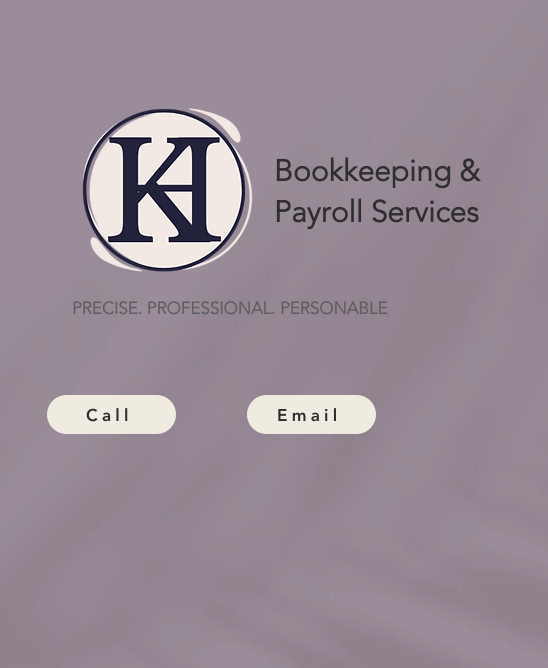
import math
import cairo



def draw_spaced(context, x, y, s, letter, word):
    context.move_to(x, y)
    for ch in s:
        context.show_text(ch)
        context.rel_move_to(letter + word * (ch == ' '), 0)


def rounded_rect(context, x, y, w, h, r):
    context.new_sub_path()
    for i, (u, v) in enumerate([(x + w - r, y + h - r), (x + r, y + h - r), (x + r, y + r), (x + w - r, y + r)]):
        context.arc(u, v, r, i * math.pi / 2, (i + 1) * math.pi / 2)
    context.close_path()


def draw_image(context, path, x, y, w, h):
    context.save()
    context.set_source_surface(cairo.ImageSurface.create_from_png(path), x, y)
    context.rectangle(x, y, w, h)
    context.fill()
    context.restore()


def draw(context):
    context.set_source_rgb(1, 1, 1)
    context.paint()
    draw_image(context, "images/1.png", 0, 0, 548, 668)
    draw_image(context, "images/2.png", 82, 108, 171, 164)
    context.set_source_rgb(240 / 255, 235 / 255, 225 / 255)
    rounded_rect(context, 47, 395, 129, 39, 19.5)
    context.fill()
    rounded_rect(context, 247, 395, 129, 39, 19.5)
    context.fill()
    context.select_font_face("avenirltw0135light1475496", cairo.FontSlant.NORMAL, cairo.FontWeight.BOLD)
    context.set_font_size(30)
    context.set_source_rgb(47 / 255, 46 / 255, 46 / 255)
    context.move_to(274, 181)
    context.show_text("Bookkeeping &")
    context.move_to(274, 222)
    context.show_text("Payroll Services")
    context.set_font_size(17)
    context.set_source_rgb(96 / 255, 94 / 255, 94 / 255)
    context.move_to(72, 314)
    context.show_text("PRECISE. PROFESSIONAL. PERSONABLE")
    context.select_font_face("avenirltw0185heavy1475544 Black")
    context.set_source_rgb(47 / 255, 46 / 255, 46 / 255)
    draw_spaced(context, 86, 421, "Call", 4.25, 0)
    draw_spaced(context, 277, 421, "Email", 4.25, 0)


surface = cairo.ImageSurface(cairo.Format.RGB24, 548, 668)
context = cairo.Context(surface)
options = cairo.FontOptions()
options.set_hint_metrics(cairo.HintMetrics.OFF)
options.set_hint_style(cairo.HintStyle.NONE)
context.set_font_options(options)
context.set_miter_limit(4)
draw(context)
surface.write_to_png("out.png")
